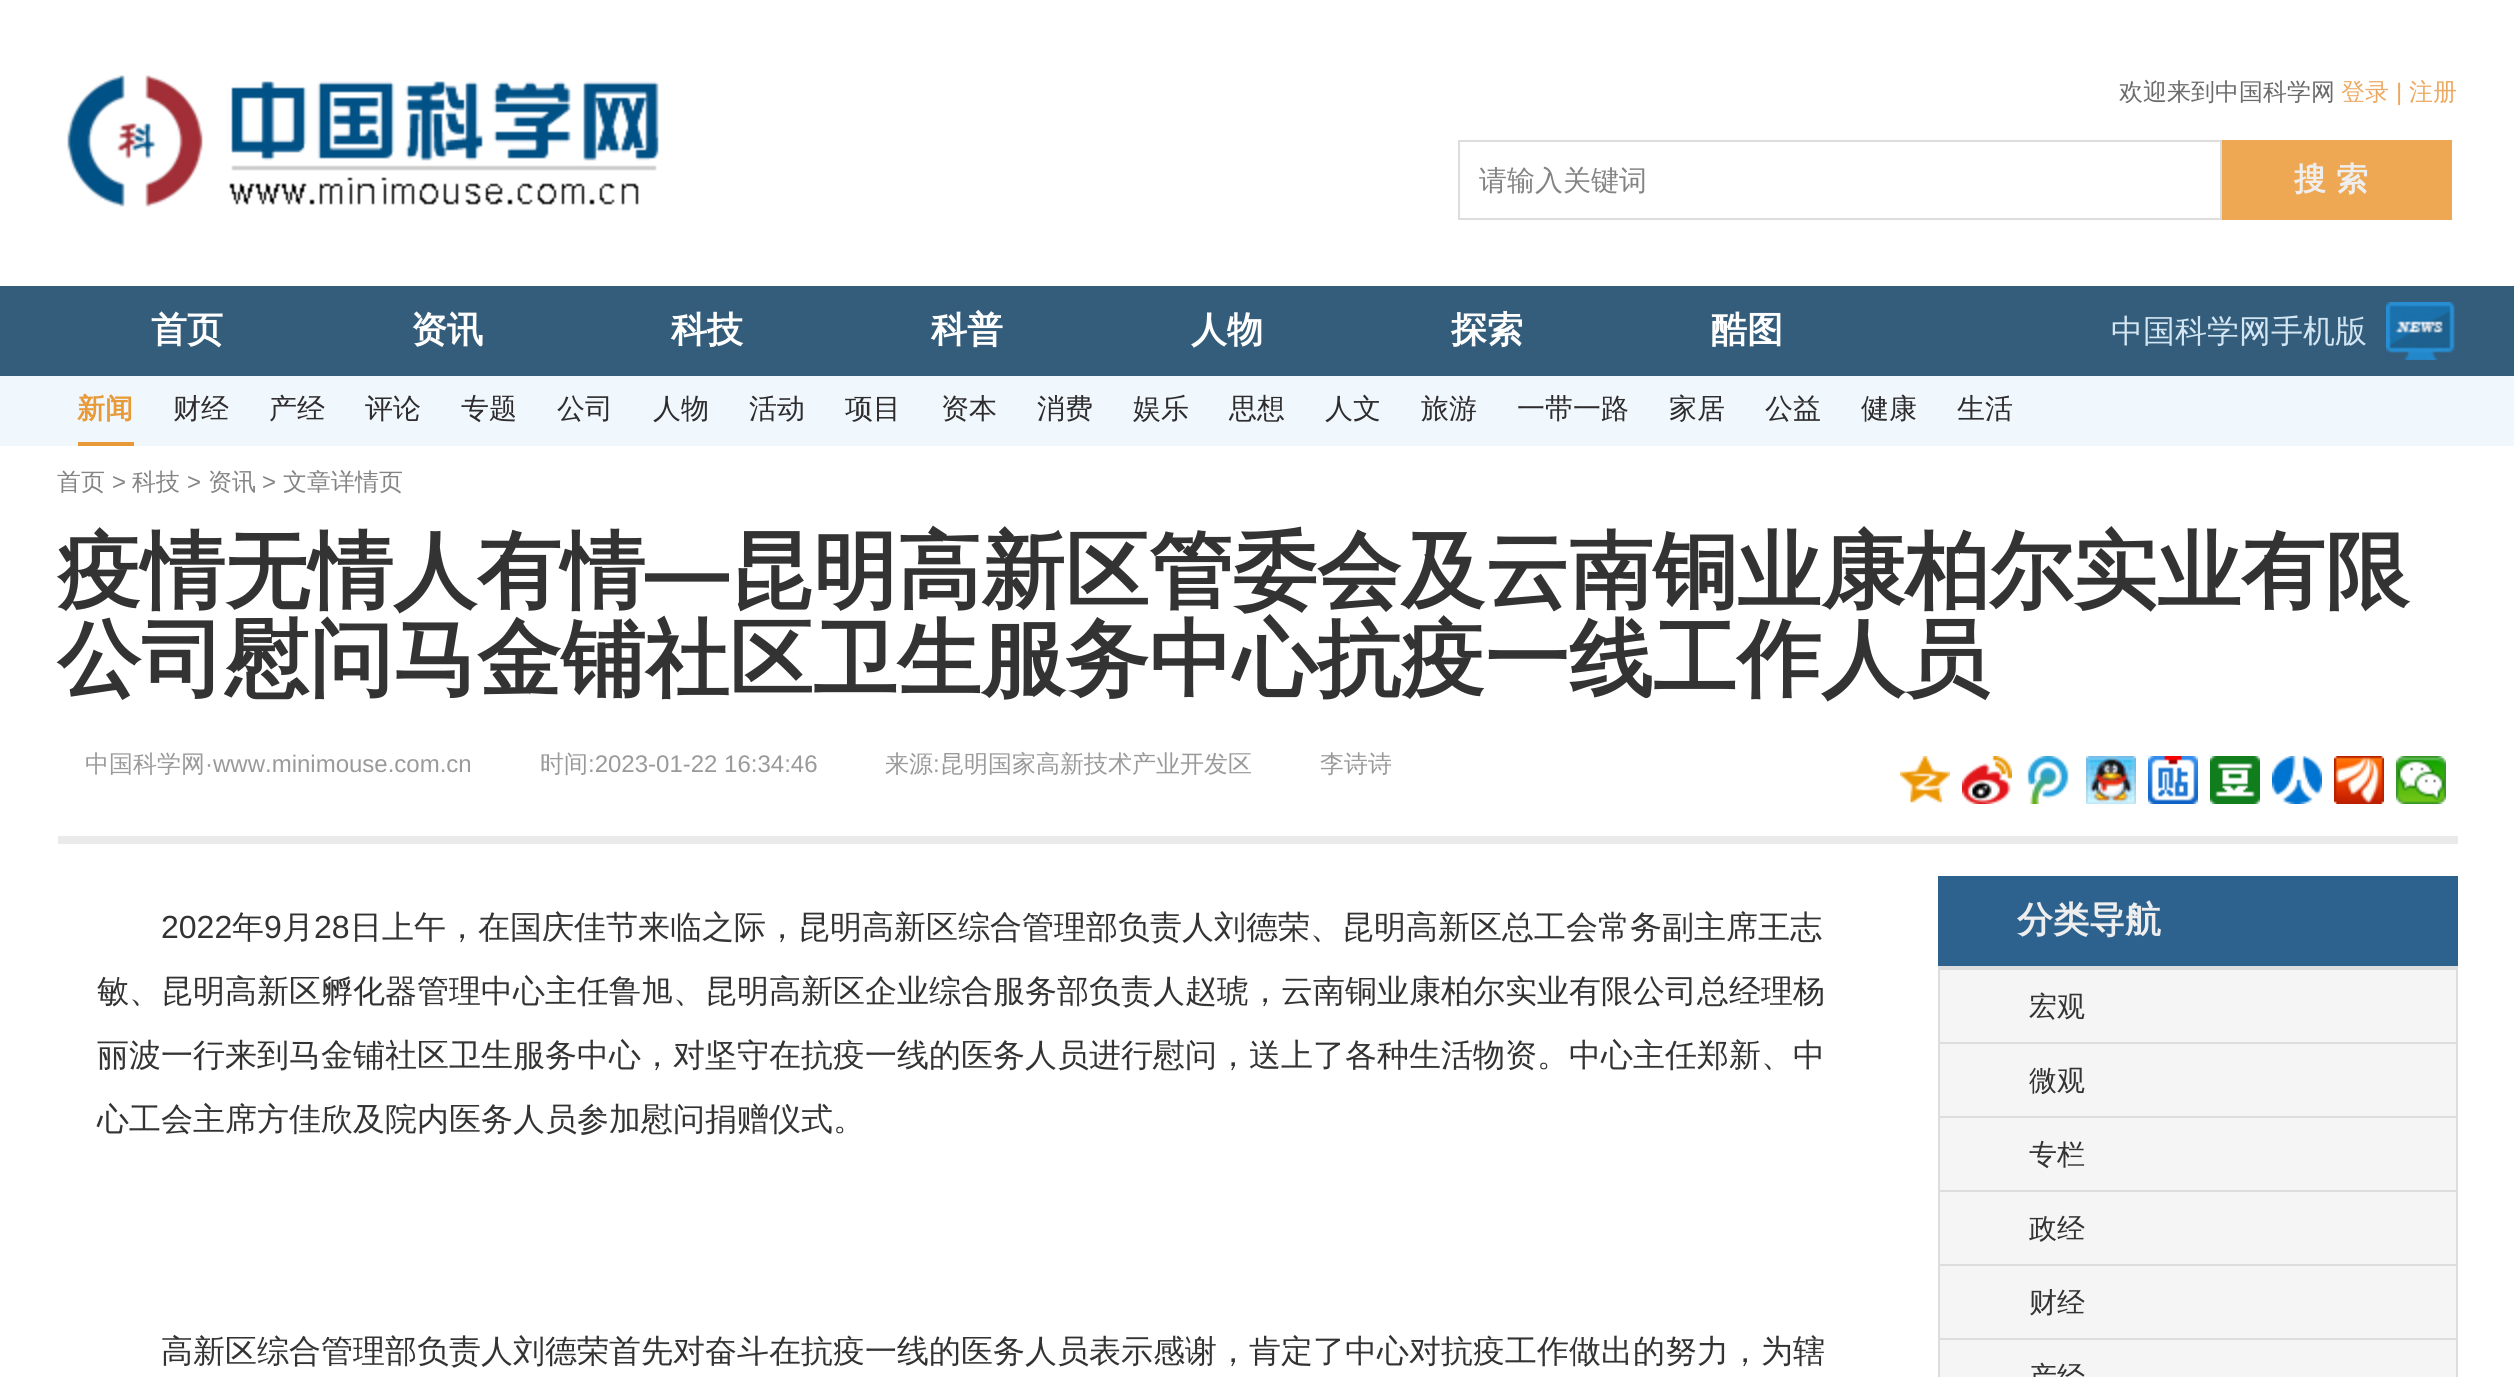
import math
import cairo



def draw_spaced(context, x, y, s, letter, word):
    context.move_to(x, y)
    for ch in s:
        context.show_text(ch)
        context.rel_move_to(letter + word * (ch == ' '), 0)


def draw_image(context, path, x, y, w, h):
    context.save()
    context.set_source_surface(cairo.ImageSurface.create_from_png(path), x, y)
    context.rectangle(x, y, w, h)
    context.fill()
    context.restore()


def draw(context):
    context.set_source_rgb(1, 1, 1)
    context.paint()
    draw_image(context, "images/1.png", 67, 75, 592, 132)
    context.rectangle(1459, 141, 762, 78)
    context.set_source_rgb(221 / 255, 221 / 255, 221 / 255)
    context.stroke()
    context.set_source_rgb(238 / 255, 168 / 255, 83 / 255)
    context.rectangle(2222, 140, 230, 80)
    context.fill()
    context.set_source_rgb(52 / 255, 93 / 255, 123 / 255)
    context.rectangle(0, 286, 2514, 90)
    context.fill()
    draw_image(context, "images/2.png", 2386, 302, 69, 58)
    context.set_source_rgb(240 / 255, 247 / 255, 253 / 255)
    context.rectangle(0, 376, 2514, 70)
    context.fill()
    context.set_source_rgb(232 / 255, 154 / 255, 56 / 255)
    context.rectangle(78, 442, 56, 4)
    context.fill()
    context.set_source_rgb(234 / 255, 234 / 255, 234 / 255)
    context.rectangle(58, 836, 2400, 8)
    context.fill()
    draw_image(context, "images/3.png", 1900, 756, 50, 47)
    draw_image(context, "images/4.png", 1962, 756, 50, 48)
    draw_image(context, "images/5.png", 2027, 756, 42, 48)
    draw_image(context, "images/6.png", 2086, 756, 50, 48)
    draw_image(context, "images/7.png", 2148, 756, 50, 48)
    draw_image(context, "images/8.png", 2210, 756, 50, 48)
    draw_image(context, "images/9.png", 2272, 756, 50, 48)
    draw_image(context, "images/10.png", 2334, 756, 50, 48)
    draw_image(context, "images/11.png", 2396, 756, 50, 48)
    context.set_source_rgb(45 / 255, 98 / 255, 142 / 255)
    context.rectangle(1938, 876, 520, 90)
    context.fill()
    context.set_source_rgb(221 / 255, 221 / 255, 221 / 255)
    context.rectangle(1938, 966, 520, 2)
    context.fill()
    context.rectangle(1939, 969, 518, 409)
    context.stroke()
    context.set_source_rgb(245 / 255, 245 / 255, 245 / 255)
    context.rectangle(1940, 970, 516, 72)
    context.fill()
    context.set_source_rgb(221 / 255, 221 / 255, 221 / 255)
    context.rectangle(1940, 1042, 516, 2)
    context.fill()
    context.set_source_rgb(245 / 255, 245 / 255, 245 / 255)
    context.rectangle(1940, 1044, 516, 72)
    context.fill()
    context.set_source_rgb(221 / 255, 221 / 255, 221 / 255)
    context.rectangle(1940, 1116, 516, 2)
    context.fill()
    context.set_source_rgb(245 / 255, 245 / 255, 245 / 255)
    context.rectangle(1940, 1118, 516, 72)
    context.fill()
    context.set_source_rgb(221 / 255, 221 / 255, 221 / 255)
    context.rectangle(1940, 1190, 516, 2)
    context.fill()
    context.set_source_rgb(245 / 255, 245 / 255, 245 / 255)
    context.rectangle(1940, 1192, 516, 72)
    context.fill()
    context.set_source_rgb(221 / 255, 221 / 255, 221 / 255)
    context.rectangle(1940, 1264, 516, 2)
    context.fill()
    context.set_source_rgb(245 / 255, 245 / 255, 245 / 255)
    context.rectangle(1940, 1266, 516, 72)
    context.fill()
    context.set_source_rgb(221 / 255, 221 / 255, 221 / 255)
    context.rectangle(1940, 1338, 516, 2)
    context.fill()
    context.set_source_rgb(245 / 255, 245 / 255, 245 / 255)
    context.rectangle(1940, 1340, 516, 37)
    context.fill()
    context.select_font_face("WenQuanYi Zen Hei Medium")
    context.set_font_size(24)
    context.set_source_rgb(107 / 255, 107 / 255, 107 / 255)
    context.move_to(2119, 100)
    context.show_text("欢迎来到中国科学网")
    context.set_source_rgb(236 / 255, 169 / 255, 98 / 255)
    context.move_to(2341, 100)
    context.show_text("登录")
    context.select_font_face("Liberation Sans")
    context.move_to(2396, 100)
    context.show_text("|")
    context.select_font_face("WenQuanYi Zen Hei Medium")
    context.move_to(2409, 100)
    context.show_text("注册")
    context.set_font_size(28)
    context.set_source_rgb(132 / 255, 132 / 255, 132 / 255)
    context.move_to(1479, 190)
    context.show_text("请输入关键词")
    context.select_font_face("WenQuanYi Zen Hei", cairo.FontSlant.NORMAL, cairo.FontWeight.BOLD)
    context.set_font_size(32)
    context.set_source_rgb(238 / 255, 238 / 255, 238 / 255)
    draw_spaced(context, 2294, 190, "搜索", 10, 0)
    context.set_font_size(36)
    context.set_source_rgb(1, 1, 1)
    context.move_to(151, 342)
    context.show_text("首页")
    context.move_to(411, 342)
    context.show_text("资讯")
    context.move_to(671, 342)
    context.show_text("科技")
    context.move_to(931, 342)
    context.show_text("科普")
    context.move_to(1191, 342)
    context.show_text("人物")
    context.move_to(1451, 342)
    context.show_text("探索")
    context.move_to(1711, 342)
    context.show_text("酷图")
    context.select_font_face("WenQuanYi Zen Hei Medium")
    context.set_font_size(32)
    context.set_source_rgb(211 / 255, 230 / 255, 244 / 255)
    context.move_to(2111, 342)
    context.show_text("中国科学网手机版")
    context.select_font_face("WenQuanYi Zen Hei", cairo.FontSlant.NORMAL, cairo.FontWeight.BOLD)
    context.set_font_size(28)
    context.set_source_rgb(232 / 255, 154 / 255, 56 / 255)
    context.move_to(77, 418)
    context.show_text("新闻")
    context.select_font_face("WenQuanYi Zen Hei Medium")
    context.set_source_rgb(46 / 255, 44 / 255, 45 / 255)
    context.move_to(173, 418)
    context.show_text("财经")
    context.move_to(269, 418)
    context.show_text("产经")
    context.move_to(365, 418)
    context.show_text("评论")
    context.move_to(461, 418)
    context.show_text("专题")
    context.move_to(557, 418)
    context.show_text("公司")
    context.move_to(653, 418)
    context.show_text("人物")
    context.move_to(749, 418)
    context.show_text("活动")
    context.move_to(845, 418)
    context.show_text("项目")
    context.move_to(941, 418)
    context.show_text("资本")
    context.move_to(1037, 418)
    context.show_text("消费")
    context.move_to(1133, 418)
    context.show_text("娱乐")
    context.move_to(1229, 418)
    context.show_text("思想")
    context.move_to(1325, 418)
    context.show_text("人文")
    context.move_to(1421, 418)
    context.show_text("旅游")
    context.move_to(1517, 418)
    context.show_text("一带一路")
    context.move_to(1669, 418)
    context.show_text("家居")
    context.move_to(1765, 418)
    context.show_text("公益")
    context.move_to(1861, 418)
    context.show_text("健康")
    context.move_to(1957, 418)
    context.show_text("生活")
    context.set_font_size(24)
    context.set_source_rgb(132 / 255, 132 / 255, 132 / 255)
    context.move_to(57, 490)
    context.show_text("首页")
    context.select_font_face("Liberation Sans")
    context.move_to(112, 490)
    context.show_text(">")
    context.select_font_face("WenQuanYi Zen Hei Medium")
    context.move_to(132, 490)
    context.show_text("科技")
    context.select_font_face("Liberation Sans")
    context.move_to(187, 490)
    context.show_text(">")
    context.select_font_face("WenQuanYi Zen Hei Medium")
    context.move_to(208, 490)
    context.show_text("资讯")
    context.select_font_face("Liberation Sans")
    context.move_to(262, 490)
    context.show_text(">")
    context.select_font_face("WenQuanYi Zen Hei Medium")
    context.move_to(283, 490)
    context.show_text("文章详情页")
    context.select_font_face("WenQuanYi Zen Hei", cairo.FontSlant.NORMAL, cairo.FontWeight.BOLD)
    context.set_font_size(84)
    context.set_source_rgb(51 / 255, 51 / 255, 51 / 255)
    context.move_to(57, 600)
    context.show_text("疫情无情人有情")
    context.select_font_face("Liberation Sans", cairo.FontSlant.NORMAL, cairo.FontWeight.BOLD)
    context.move_to(645, 600)
    context.show_text("—")
    context.select_font_face("WenQuanYi Zen Hei", cairo.FontSlant.NORMAL, cairo.FontWeight.BOLD)
    context.move_to(729, 600)
    context.show_text("昆明高新区管委会及云南铜业康柏尔实业有限")
    context.move_to(57, 688)
    context.show_text("公司慰问马金铺社区卫生服务中心抗疫一线工作人员")
    context.select_font_face("WenQuanYi Zen Hei Medium")
    context.set_font_size(24)
    context.set_source_rgb(154 / 255, 154 / 255, 154 / 255)
    context.move_to(85, 772)
    context.show_text("中国科学网")
    context.select_font_face("Liberation Sans")
    context.move_to(205, 772)
    context.show_text("·www.minimouse.com.cn")
    context.select_font_face("WenQuanYi Zen Hei Medium")
    context.move_to(540, 772)
    context.show_text("时间")
    context.select_font_face("Liberation Sans")
    context.move_to(588, 772)
    context.show_text(":2023-01-22 16:34:46")
    context.select_font_face("WenQuanYi Zen Hei Medium")
    context.move_to(885, 772)
    context.show_text("来源")
    context.select_font_face("Liberation Sans")
    context.move_to(933, 772)
    context.show_text(":")
    context.select_font_face("WenQuanYi Zen Hei Medium")
    context.move_to(940, 772)
    context.show_text("昆明国家高新技术产业开发区")
    context.move_to(1320, 772)
    context.show_text("李诗诗")
    context.select_font_face("Liberation Sans")
    context.set_font_size(32)
    context.set_source_rgb(51 / 255, 51 / 255, 51 / 255)
    context.move_to(161, 938)
    context.show_text("2022")
    context.select_font_face("WenQuanYi Zen Hei Medium")
    context.move_to(232, 938)
    context.show_text("年")
    context.select_font_face("Liberation Sans")
    context.move_to(264, 938)
    context.show_text("9")
    context.select_font_face("WenQuanYi Zen Hei Medium")
    context.move_to(282, 938)
    context.show_text("月")
    context.select_font_face("Liberation Sans")
    context.move_to(314, 938)
    context.show_text("28")
    context.select_font_face("WenQuanYi Zen Hei Medium")
    context.move_to(350, 938)
    context.show_text("日上午，在国庆佳节来临之际，昆明高新区综合管理部负责人刘德荣、昆明高新区总工会常务副主席王志")
    context.move_to(97, 1002)
    context.show_text("敏、昆明高新区孵化器管理中心主任鲁旭、昆明高新区企业综合服务部负责人赵琥，云南铜业康柏尔实业有限公司总经理杨")
    context.move_to(97, 1066)
    context.show_text("丽波一行来到马金铺社区卫生服务中心，对坚守在抗疫一线的医务人员进行慰问，送上了各种生活物资。中心主任郑新、中")
    context.move_to(97, 1130)
    context.show_text("心工会主席方佳欣及院内医务人员参加慰问捐赠仪式。")
    context.move_to(161, 1362)
    context.show_text("高新区综合管理部负责人刘德荣首先对奋斗在抗疫一线的医务人员表示感谢，肯定了中心对抗疫工作做出的努力，为辖")
    context.select_font_face("WenQuanYi Zen Hei", cairo.FontSlant.NORMAL, cairo.FontWeight.BOLD)
    context.set_font_size(36)
    context.set_source_rgb(238 / 255, 238 / 255, 238 / 255)
    context.move_to(2017, 932)
    context.show_text("分类导航")
    context.select_font_face("WenQuanYi Zen Hei Medium")
    context.set_font_size(28)
    context.set_source_rgb(51 / 255, 51 / 255, 51 / 255)
    context.move_to(2029, 1016)
    context.show_text("宏观")
    context.move_to(2029, 1090)
    context.show_text("微观")
    context.move_to(2029, 1164)
    context.show_text("专栏")
    context.move_to(2029, 1238)
    context.show_text("政经")
    context.move_to(2029, 1312)
    context.show_text("财经")
    context.move_to(2029, 1386)
    context.show_text("产经")


surface = cairo.ImageSurface(cairo.Format.RGB24, 2514, 1377)
context = cairo.Context(surface)
options = cairo.FontOptions()
options.set_hint_metrics(cairo.HintMetrics.OFF)
options.set_hint_style(cairo.HintStyle.NONE)
context.set_font_options(options)
context.set_miter_limit(4)
draw(context)
surface.write_to_png("out.png")
